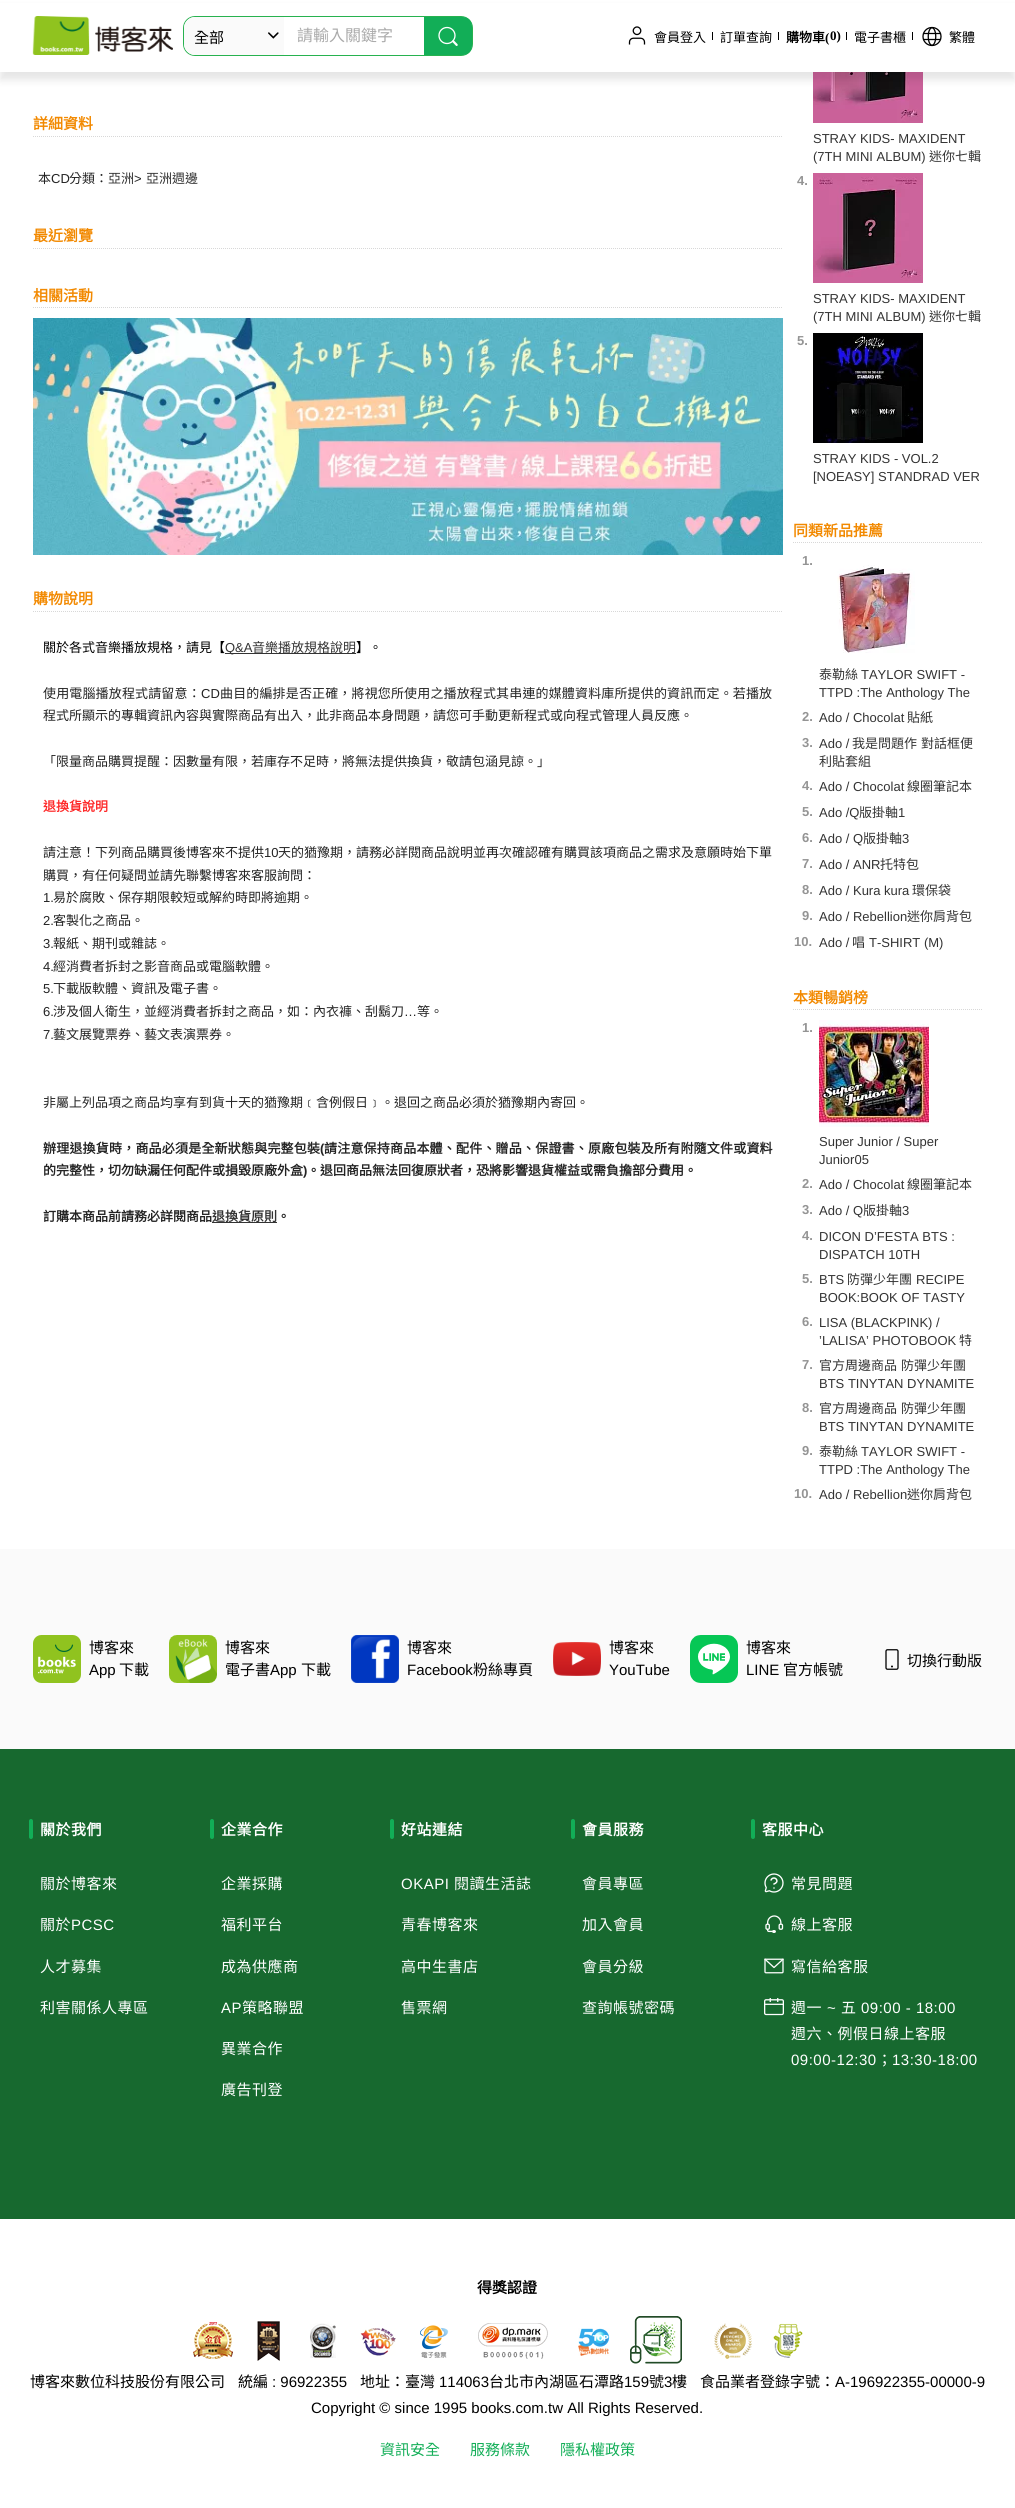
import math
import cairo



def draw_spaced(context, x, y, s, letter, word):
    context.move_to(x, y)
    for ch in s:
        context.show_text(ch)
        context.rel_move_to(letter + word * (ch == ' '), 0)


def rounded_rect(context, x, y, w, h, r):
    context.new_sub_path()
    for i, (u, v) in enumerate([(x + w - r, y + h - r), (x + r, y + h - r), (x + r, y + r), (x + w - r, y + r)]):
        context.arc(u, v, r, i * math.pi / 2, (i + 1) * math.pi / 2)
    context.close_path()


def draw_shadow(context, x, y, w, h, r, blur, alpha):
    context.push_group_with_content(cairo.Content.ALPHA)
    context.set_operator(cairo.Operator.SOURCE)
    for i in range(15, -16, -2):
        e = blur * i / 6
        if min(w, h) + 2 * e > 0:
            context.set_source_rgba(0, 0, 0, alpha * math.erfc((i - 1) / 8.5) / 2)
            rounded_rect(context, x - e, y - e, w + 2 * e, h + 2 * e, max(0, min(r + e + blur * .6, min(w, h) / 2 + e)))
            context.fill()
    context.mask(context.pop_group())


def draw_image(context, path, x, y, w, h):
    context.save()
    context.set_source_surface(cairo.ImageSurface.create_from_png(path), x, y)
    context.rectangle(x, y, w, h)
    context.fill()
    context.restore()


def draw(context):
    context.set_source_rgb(1, 1, 1)
    context.paint()
    draw_image(context, "images/7.png", 813, 72, 110, 51)
    context.set_source_rgb(0, 0, 0)
    draw_shadow(context, 0, 8, 1015, 72, 0, 4, 0.1)
    context.set_source_rgb(1, 1, 1)
    context.rectangle(0, 3, 1015, 69)
    context.fill()
    draw_image(context, "images/1.png", 32, 16, 141, 39)
    rounded_rect(context, 183.5, 16.5, 289, 39, 11.5)
    context.set_source_rgb(39 / 255, 178 / 255, 79 / 255)
    context.set_line_width(1)
    context.stroke()
    context.set_source_rgb(250 / 255, 250 / 255, 250 / 255)
    context.new_path()
    context.move_to(195, 17)
    context.line_to(284, 17)
    context.line_to(284, 55)
    context.line_to(195, 55)
    context.curve_to(189, 55, 184, 50, 184, 44)
    context.line_to(184, 28)
    context.curve_to(184, 22, 189, 17, 195, 17)
    context.close_path()
    context.fill()
    draw_image(context, "images/2.png", 268, 32, 11, 7)
    context.set_source_rgb(18 / 255, 174 / 255, 87 / 255)
    context.new_path()
    context.move_to(424, 17)
    context.line_to(463, 17)
    context.curve_to(468, 17, 472, 21, 472, 26)
    context.line_to(472, 46)
    context.curve_to(472, 51, 468, 55, 463, 55)
    context.line_to(424, 55)
    context.close_path()
    context.fill()
    draw_image(context, "images/3.png", 438, 26, 20, 20)
    draw_image(context, "images/4.png", 628, 26, 18, 19)
    context.set_source_rgb(0, 0, 0)
    context.rectangle(712, 32, 1, 8)
    context.fill()
    context.rectangle(778, 32, 1, 8)
    context.fill()
    context.rectangle(846, 32, 1, 8)
    context.fill()
    context.rectangle(912, 32, 1, 8)
    context.fill()
    draw_image(context, "images/5.png", 922, 26, 20, 21)
    context.new_path()
    context.move_to(33, 136.5)
    context.line_to(783, 136.5)
    context.set_source_rgb(216 / 255, 216 / 255, 216 / 255)
    context.set_dash([1, 1])
    context.stroke()
    context.new_path()
    context.move_to(33, 248.5)
    context.line_to(783, 248.5)
    context.stroke()
    context.new_path()
    context.move_to(33, 307.5)
    context.line_to(783, 307.5)
    context.stroke()
    draw_image(context, "images/6.png", 33, 318, 750, 237)
    context.new_path()
    context.move_to(33, 611.5)
    context.line_to(783, 611.5)
    context.stroke()
    context.set_source_rgb(51 / 255, 51 / 255, 51 / 255)
    context.rectangle(225, 653, 131, 1)
    context.fill()
    context.rectangle(212, 1222, 65, 1)
    context.fill()
    draw_image(context, "images/8.png", 813, 173, 110, 110)
    draw_image(context, "images/9.png", 813, 333, 110, 110)
    context.new_path()
    context.move_to(793, 542.5)
    context.line_to(983, 542.5)
    context.set_source_rgb(216 / 255, 216 / 255, 216 / 255)
    context.stroke()
    draw_image(context, "images/10.png", 837, 565, 78, 88)
    context.new_path()
    context.move_to(793, 1009.5)
    context.line_to(983, 1009.5)
    context.stroke()
    draw_image(context, "images/11.png", 819, 1020, 110, 107)
    context.set_source_rgb(250 / 255, 250 / 255, 250 / 255)
    context.rectangle(0, 1549, 1015, 200)
    context.fill()
    draw_image(context, "images/12.png", 33, 1635, 48, 48)
    draw_image(context, "images/13.png", 169, 1635, 48, 48)
    draw_image(context, "images/14.png", 351, 1635, 48, 48)
    draw_image(context, "images/15.png", 553, 1642, 48, 34)
    draw_image(context, "images/16.png", 690, 1635, 48, 48)
    draw_image(context, "images/17.png", 885, 1649, 14, 21)
    context.set_source_rgb(23 / 255, 105 / 255, 47 / 255)
    context.rectangle(0, 1749, 1015, 470)
    context.fill()
    context.set_source_rgb(18 / 255, 174 / 255, 87 / 255)
    rounded_rect(context, 29, 1819, 4, 20, 2)
    context.fill()
    rounded_rect(context, 210, 1819, 4, 20, 2)
    context.fill()
    rounded_rect(context, 390, 1819, 4, 20, 2)
    context.fill()
    rounded_rect(context, 571, 1819, 4, 20, 2)
    context.fill()
    rounded_rect(context, 751, 1819, 4, 20, 2)
    context.fill()
    draw_image(context, "images/18.png", 764, 1873, 20, 20)
    draw_image(context, "images/19.png", 765, 1915, 19, 18)
    draw_image(context, "images/20.png", 764, 1958, 20, 16)
    draw_image(context, "images/21.png", 764, 1998, 20, 18)
    draw_image(context, "images/22.png", 193, 2322, 40, 37)
    draw_image(context, "images/23.png", 257, 2321, 23, 40)
    draw_image(context, "images/24.png", 310, 2323, 26, 35)
    draw_image(context, "images/25.png", 360, 2328, 36, 28)
    draw_image(context, "images/26.png", 420, 2325, 29, 33)
    draw_image(context, "images/27.png", 478, 2323, 70, 36)
    draw_image(context, "images/28.png", 578, 2328, 32, 28)
    draw_image(context, "images/29.png", 630, 2316, 52, 48)
    draw_image(context, "images/30.png", 714, 2323, 38, 36)
    draw_image(context, "images/31.png", 773, 2323, 30, 35)
    context.select_font_face("Noto Sans CJK TC")
    context.set_font_size(15)
    context.set_source_rgb(0, 0, 0)
    context.move_to(194, 43)
    context.show_text("全部")
    context.set_font_size(16)
    context.set_source_rgb(170 / 255, 170 / 255, 170 / 255)
    context.move_to(297, 41)
    context.show_text("請輸入關鍵字")
    context.set_font_size(13)
    context.set_source_rgb(0, 0, 0)
    context.move_to(654, 42)
    context.show_text("會員登入")
    context.move_to(720, 42)
    context.show_text("訂單查詢")
    context.select_font_face("Noto Sans CJK TC", cairo.FontSlant.NORMAL, cairo.FontWeight.BOLD)
    context.move_to(786, 42)
    context.show_text("購物車")
    context.select_font_face("Liberation Serif", cairo.FontSlant.NORMAL, cairo.FontWeight.BOLD)
    context.move_to(825, 42)
    context.show_text("(")
    context.move_to(830, 40)
    context.show_text("0)")
    context.select_font_face("Noto Sans CJK TC")
    context.move_to(854, 42)
    context.show_text("電子書櫃")
    context.move_to(949, 42)
    context.show_text("繁體")
    context.select_font_face("Noto Sans CJK TC", cairo.FontSlant.NORMAL, cairo.FontWeight.BOLD)
    context.set_font_size(15)
    context.set_source_rgb(242 / 255, 137 / 255, 0)
    context.move_to(33, 129)
    context.show_text("詳細資料")
    context.select_font_face("Noto Sans CJK TC")
    context.set_font_size(13)
    context.set_source_rgb(35 / 255, 35 / 255, 35 / 255)
    context.move_to(38, 183)
    context.show_text("本")
    context.select_font_face("Liberation Sans")
    context.move_to(51, 183)
    context.show_text("CD")
    context.select_font_face("Noto Sans CJK TC")
    context.move_to(69, 183)
    context.show_text("分類：")
    context.set_source_rgb(51 / 255, 51 / 255, 51 / 255)
    context.move_to(108, 183)
    context.show_text("亞洲")
    context.select_font_face("Liberation Sans")
    context.set_source_rgb(35 / 255, 35 / 255, 35 / 255)
    context.move_to(134, 183)
    context.show_text(">")
    context.select_font_face("Noto Sans CJK TC")
    context.set_source_rgb(51 / 255, 51 / 255, 51 / 255)
    context.move_to(146, 183)
    context.show_text("亞洲週邊")
    context.select_font_face("Noto Sans CJK TC", cairo.FontSlant.NORMAL, cairo.FontWeight.BOLD)
    context.set_font_size(15)
    context.set_source_rgb(242 / 255, 137 / 255, 0)
    context.move_to(33, 241)
    context.show_text("最近瀏覽")
    context.move_to(33, 301)
    context.show_text("相關活動")
    context.move_to(33, 604)
    context.show_text("購物說明")
    context.select_font_face("Noto Sans CJK TC")
    context.set_font_size(13)
    context.set_source_rgb(0, 0, 0)
    context.move_to(43, 652)
    context.show_text("關於各式音樂播放規格，請見【")
    context.select_font_face("Liberation Sans")
    context.set_source_rgb(51 / 255, 51 / 255, 51 / 255)
    context.move_to(225, 652)
    context.show_text("Q&A")
    context.select_font_face("Noto Sans CJK TC")
    context.move_to(252, 652)
    context.show_text("音樂播放規格說明")
    context.set_source_rgb(0, 0, 0)
    context.move_to(356, 652)
    context.show_text("】。")
    context.set_source_rgb(35 / 255, 35 / 255, 35 / 255)
    draw_spaced(context, 43, 698, "使用電腦播放程式請留意：", 0.15, 0)
    context.select_font_face("Liberation Sans")
    draw_spaced(context, 201, 698, "CD", 0.15, 0)
    context.select_font_face("Noto Sans CJK TC")
    draw_spaced(context, 220, 698, "曲目的編排是否正確，將視您所使用之播放程式其串連的媒體資料庫所提供的資訊而定。若播放", 0.15, 0)
    context.move_to(43, 720)
    context.show_text("程式所顯示的專輯資訊內容與實際商品有出入，此非商品本身問題，請您可手動更新程式或向程式管理人員反應。")
    context.move_to(43, 766)
    context.show_text("「限量商品購買提醒：因數量有限，若庫存不足時，將無法提供換貨，敬請包涵見諒。」")
    context.select_font_face("Noto Sans CJK TC", cairo.FontSlant.NORMAL, cairo.FontWeight.BOLD)
    context.set_source_rgb(254 / 255, 40 / 255, 40 / 255)
    context.move_to(43, 811)
    context.show_text("退換貨說明")
    context.select_font_face("Noto Sans CJK TC")
    context.set_source_rgb(35 / 255, 35 / 255, 35 / 255)
    context.move_to(43, 857)
    context.show_text("請注意！下列商品購買後博客來不提供")
    context.select_font_face("Liberation Sans")
    context.move_to(264, 857)
    context.show_text("10")
    context.select_font_face("Noto Sans CJK TC")
    context.move_to(278, 857)
    context.show_text("天的猶豫期，請務必詳閱商品說明並再次確認確有購買該項商品之需求及意願時始下單")
    context.move_to(43, 880)
    context.show_text("購買，有任何疑問並請先聯繫博客來客服詢問：")
    context.select_font_face("Liberation Sans")
    context.move_to(43, 902)
    context.show_text("1.")
    context.select_font_face("Noto Sans CJK TC")
    context.move_to(53, 902)
    context.show_text("易於腐敗、保存期限較短或解約時即將逾期。")
    context.select_font_face("Liberation Sans")
    context.move_to(43, 925)
    context.show_text("2.")
    context.select_font_face("Noto Sans CJK TC")
    context.move_to(53, 925)
    context.show_text("客製化之商品。")
    context.select_font_face("Liberation Sans")
    context.move_to(43, 948)
    context.show_text("3.")
    context.select_font_face("Noto Sans CJK TC")
    context.move_to(53, 948)
    context.show_text("報紙、期刊或雜誌。")
    context.select_font_face("Liberation Sans")
    context.move_to(43, 971)
    context.show_text("4.")
    context.select_font_face("Noto Sans CJK TC")
    context.move_to(53, 971)
    context.show_text("經消費者拆封之影音商品或電腦軟體。")
    context.select_font_face("Liberation Sans")
    context.move_to(43, 993)
    context.show_text("5.")
    context.select_font_face("Noto Sans CJK TC")
    context.move_to(53, 993)
    context.show_text("下載版軟體、資訊及電子書。")
    context.select_font_face("Liberation Sans")
    context.move_to(43, 1016)
    context.show_text("6.")
    context.select_font_face("Noto Sans CJK TC")
    context.move_to(53, 1016)
    context.show_text("涉及個人衛生，並經消費者拆封之商品，如：內衣褲、刮鬍刀")
    context.select_font_face("Liberation Sans")
    context.move_to(404, 1016)
    context.show_text("…")
    context.select_font_face("Noto Sans CJK TC")
    context.move_to(417, 1016)
    context.show_text("等。")
    context.select_font_face("Liberation Sans")
    context.move_to(43, 1039)
    context.show_text("7.")
    context.select_font_face("Noto Sans CJK TC")
    context.move_to(53, 1039)
    context.show_text("藝文展覽票券、藝文表演票券。")
    context.move_to(43, 1107)
    context.show_text("非屬上列品項之商品均享有到貨十天的猶豫期﹝含例假日﹞。退回之商品必須於猶豫期內寄回。")
    context.select_font_face("Noto Sans CJK TC", cairo.FontSlant.NORMAL, cairo.FontWeight.BOLD)
    draw_spaced(context, 43, 1153, "辦理退換貨時，商品必須是全新狀態與完整包裝", 0.2, 0)
    context.select_font_face("Liberation Sans", cairo.FontSlant.NORMAL, cairo.FontWeight.BOLD)
    draw_spaced(context, 320, 1153, "(", 0.2, 0)
    context.select_font_face("Noto Sans CJK TC", cairo.FontSlant.NORMAL, cairo.FontWeight.BOLD)
    draw_spaced(context, 324, 1153, "請注意保持商品本體、配件、贈品、保證書、原廠包裝及所有附隨文件或資料", 0.2, 0)
    context.move_to(43, 1175)
    context.show_text("的完整性，切勿缺漏任何配件或損毀原廠外盒")
    context.select_font_face("Liberation Sans", cairo.FontSlant.NORMAL, cairo.FontWeight.BOLD)
    context.move_to(303, 1175)
    context.show_text(")")
    context.select_font_face("Noto Sans CJK TC", cairo.FontSlant.NORMAL, cairo.FontWeight.BOLD)
    context.move_to(307, 1175)
    context.show_text("。退回商品無法回復原狀者，恐將影響退貨權益或需負擔部分費用。")
    context.move_to(43, 1221)
    context.show_text("訂購本商品前請務必詳閱商品")
    context.set_source_rgb(51 / 255, 51 / 255, 51 / 255)
    context.move_to(212, 1221)
    context.show_text("退換貨原則")
    context.set_source_rgb(35 / 255, 35 / 255, 35 / 255)
    context.move_to(277, 1221)
    context.show_text("。")
    context.select_font_face("Liberation Sans")
    context.set_source_rgb(51 / 255, 51 / 255, 51 / 255)
    context.move_to(813, 143)
    context.show_text("STRAY KIDS- MAXIDENT")
    context.move_to(813, 161)
    context.show_text("(7TH MINI ALBUM)")
    context.select_font_face("Noto Sans CJK TC")
    context.move_to(929, 161)
    context.show_text("迷你七輯")
    context.select_font_face("Liberation Sans", cairo.FontSlant.NORMAL, cairo.FontWeight.BOLD)
    context.set_source_rgb(148 / 255, 148 / 255, 148 / 255)
    context.move_to(797, 185)
    context.show_text("4.")
    context.select_font_face("Liberation Sans")
    context.set_source_rgb(51 / 255, 51 / 255, 51 / 255)
    context.move_to(813, 303)
    context.show_text("STRAY KIDS- MAXIDENT")
    context.move_to(813, 321)
    context.show_text("(7TH MINI ALBUM)")
    context.select_font_face("Noto Sans CJK TC")
    context.move_to(929, 321)
    context.show_text("迷你七輯")
    context.select_font_face("Liberation Sans", cairo.FontSlant.NORMAL, cairo.FontWeight.BOLD)
    context.set_source_rgb(148 / 255, 148 / 255, 148 / 255)
    context.move_to(797, 345)
    context.show_text("5.")
    context.select_font_face("Liberation Sans")
    context.set_source_rgb(51 / 255, 51 / 255, 51 / 255)
    context.move_to(813, 463)
    context.show_text("STRAY KIDS - VOL.2")
    context.move_to(813, 481)
    context.show_text("[NOEASY] STANDRAD VER")
    context.select_font_face("Noto Sans CJK TC", cairo.FontSlant.NORMAL, cairo.FontWeight.BOLD)
    context.set_font_size(15)
    context.set_source_rgb(242 / 255, 137 / 255, 0)
    context.move_to(793, 536)
    context.show_text("同類新品推薦")
    context.select_font_face("Liberation Sans", cairo.FontSlant.NORMAL, cairo.FontWeight.BOLD)
    context.set_font_size(13)
    context.set_source_rgb(148 / 255, 148 / 255, 148 / 255)
    context.move_to(802, 565)
    context.show_text("1.")
    context.select_font_face("Noto Sans CJK TC")
    context.set_source_rgb(51 / 255, 51 / 255, 51 / 255)
    context.move_to(819, 679)
    context.show_text("泰勒絲")
    context.select_font_face("Liberation Sans")
    context.move_to(861, 679)
    context.show_text("TAYLOR SWIFT -")
    context.move_to(819, 697)
    context.show_text("TTPD :The Anthology The")
    context.select_font_face("Liberation Sans", cairo.FontSlant.NORMAL, cairo.FontWeight.BOLD)
    context.set_source_rgb(148 / 255, 148 / 255, 148 / 255)
    context.move_to(802, 721)
    context.show_text("2.")
    context.select_font_face("Liberation Sans")
    context.set_source_rgb(51 / 255, 51 / 255, 51 / 255)
    context.move_to(819, 722)
    context.show_text("Ado / Chocolat")
    context.select_font_face("Noto Sans CJK TC")
    context.move_to(907, 722)
    context.show_text("貼紙")
    context.select_font_face("Liberation Sans", cairo.FontSlant.NORMAL, cairo.FontWeight.BOLD)
    context.set_source_rgb(148 / 255, 148 / 255, 148 / 255)
    context.move_to(802, 747)
    context.show_text("3.")
    context.select_font_face("Liberation Sans")
    context.set_source_rgb(51 / 255, 51 / 255, 51 / 255)
    context.move_to(819, 748)
    context.show_text("Ado /")
    context.select_font_face("Noto Sans CJK TC")
    context.move_to(852, 748)
    context.show_text("我是問題作")
    context.move_to(921, 748)
    context.show_text("對話框便")
    context.move_to(819, 766)
    context.show_text("利貼套組")
    context.select_font_face("Liberation Sans", cairo.FontSlant.NORMAL, cairo.FontWeight.BOLD)
    context.set_source_rgb(148 / 255, 148 / 255, 148 / 255)
    context.move_to(802, 790)
    context.show_text("4.")
    context.select_font_face("Liberation Sans")
    context.set_source_rgb(51 / 255, 51 / 255, 51 / 255)
    context.move_to(819, 791)
    context.show_text("Ado / Chocolat")
    context.select_font_face("Noto Sans CJK TC")
    context.move_to(907, 791)
    context.show_text("線圈筆記本")
    context.select_font_face("Liberation Sans", cairo.FontSlant.NORMAL, cairo.FontWeight.BOLD)
    context.set_source_rgb(148 / 255, 148 / 255, 148 / 255)
    context.move_to(802, 816)
    context.show_text("5.")
    context.select_font_face("Liberation Sans")
    context.set_source_rgb(51 / 255, 51 / 255, 51 / 255)
    context.move_to(819, 817)
    context.show_text("Ado /Q")
    context.select_font_face("Noto Sans CJK TC")
    context.move_to(859, 817)
    context.show_text("版掛軸")
    context.select_font_face("Liberation Sans")
    context.move_to(898, 817)
    context.show_text("1")
    context.select_font_face("Liberation Sans", cairo.FontSlant.NORMAL, cairo.FontWeight.BOLD)
    context.set_source_rgb(148 / 255, 148 / 255, 148 / 255)
    context.move_to(802, 842)
    context.show_text("6.")
    context.select_font_face("Liberation Sans")
    context.set_source_rgb(51 / 255, 51 / 255, 51 / 255)
    context.move_to(819, 843)
    context.show_text("Ado / Q")
    context.select_font_face("Noto Sans CJK TC")
    context.move_to(863, 843)
    context.show_text("版掛軸")
    context.select_font_face("Liberation Sans")
    context.move_to(902, 843)
    context.show_text("3")
    context.select_font_face("Liberation Sans", cairo.FontSlant.NORMAL, cairo.FontWeight.BOLD)
    context.set_source_rgb(148 / 255, 148 / 255, 148 / 255)
    context.move_to(802, 868)
    context.show_text("7.")
    context.select_font_face("Liberation Sans")
    context.set_source_rgb(51 / 255, 51 / 255, 51 / 255)
    context.move_to(819, 869)
    context.show_text("Ado / ANR")
    context.select_font_face("Noto Sans CJK TC")
    context.move_to(880, 869)
    context.show_text("托特包")
    context.select_font_face("Liberation Sans", cairo.FontSlant.NORMAL, cairo.FontWeight.BOLD)
    context.set_source_rgb(148 / 255, 148 / 255, 148 / 255)
    context.move_to(802, 894)
    context.show_text("8.")
    context.select_font_face("Liberation Sans")
    context.set_source_rgb(51 / 255, 51 / 255, 51 / 255)
    context.move_to(819, 895)
    context.show_text("Ado / Kura kura")
    context.select_font_face("Noto Sans CJK TC")
    context.move_to(912, 895)
    context.show_text("環保袋")
    context.select_font_face("Liberation Sans", cairo.FontSlant.NORMAL, cairo.FontWeight.BOLD)
    context.set_source_rgb(148 / 255, 148 / 255, 148 / 255)
    context.move_to(802, 920)
    context.show_text("9.")
    context.select_font_face("Liberation Sans")
    context.set_source_rgb(51 / 255, 51 / 255, 51 / 255)
    context.move_to(819, 921)
    context.show_text("Ado / Rebellion")
    context.select_font_face("Noto Sans CJK TC")
    context.move_to(907, 921)
    context.show_text("迷你肩背包")
    context.select_font_face("Liberation Sans", cairo.FontSlant.NORMAL, cairo.FontWeight.BOLD)
    context.set_source_rgb(148 / 255, 148 / 255, 148 / 255)
    context.move_to(794, 946)
    context.show_text("10.")
    context.select_font_face("Liberation Sans")
    context.set_source_rgb(51 / 255, 51 / 255, 51 / 255)
    context.move_to(819, 947)
    context.show_text("Ado /")
    context.select_font_face("Noto Sans CJK TC")
    context.move_to(852, 947)
    context.show_text("唱")
    context.select_font_face("Liberation Sans")
    context.move_to(869, 947)
    context.show_text("T-SHIRT (M)")
    context.select_font_face("Noto Sans CJK TC", cairo.FontSlant.NORMAL, cairo.FontWeight.BOLD)
    context.set_font_size(15)
    context.set_source_rgb(242 / 255, 137 / 255, 0)
    context.move_to(793, 1003)
    context.show_text("本類暢銷榜")
    context.select_font_face("Liberation Sans", cairo.FontSlant.NORMAL, cairo.FontWeight.BOLD)
    context.set_font_size(13)
    context.set_source_rgb(148 / 255, 148 / 255, 148 / 255)
    context.move_to(802, 1032)
    context.show_text("1.")
    context.select_font_face("Liberation Sans")
    context.set_source_rgb(51 / 255, 51 / 255, 51 / 255)
    context.move_to(819, 1146)
    context.show_text("Super Junior / Super")
    context.move_to(819, 1164)
    context.show_text("Junior05")
    context.select_font_face("Liberation Sans", cairo.FontSlant.NORMAL, cairo.FontWeight.BOLD)
    context.set_source_rgb(148 / 255, 148 / 255, 148 / 255)
    context.move_to(802, 1188)
    context.show_text("2.")
    context.select_font_face("Liberation Sans")
    context.set_source_rgb(51 / 255, 51 / 255, 51 / 255)
    context.move_to(819, 1189)
    context.show_text("Ado / Chocolat")
    context.select_font_face("Noto Sans CJK TC")
    context.move_to(907, 1189)
    context.show_text("線圈筆記本")
    context.select_font_face("Liberation Sans", cairo.FontSlant.NORMAL, cairo.FontWeight.BOLD)
    context.set_source_rgb(148 / 255, 148 / 255, 148 / 255)
    context.move_to(802, 1214)
    context.show_text("3.")
    context.select_font_face("Liberation Sans")
    context.set_source_rgb(51 / 255, 51 / 255, 51 / 255)
    context.move_to(819, 1215)
    context.show_text("Ado / Q")
    context.select_font_face("Noto Sans CJK TC")
    context.move_to(863, 1215)
    context.show_text("版掛軸")
    context.select_font_face("Liberation Sans")
    context.move_to(902, 1215)
    context.show_text("3")
    context.select_font_face("Liberation Sans", cairo.FontSlant.NORMAL, cairo.FontWeight.BOLD)
    context.set_source_rgb(148 / 255, 148 / 255, 148 / 255)
    context.move_to(802, 1240)
    context.show_text("4.")
    context.select_font_face("Liberation Sans")
    context.set_source_rgb(51 / 255, 51 / 255, 51 / 255)
    context.move_to(819, 1241)
    context.show_text("DICON D’FESTA BTS :")
    context.move_to(819, 1259)
    context.show_text("DISPATCH 10TH")
    context.select_font_face("Liberation Sans", cairo.FontSlant.NORMAL, cairo.FontWeight.BOLD)
    context.set_source_rgb(148 / 255, 148 / 255, 148 / 255)
    context.move_to(802, 1283)
    context.show_text("5.")
    context.select_font_face("Liberation Sans")
    context.set_source_rgb(51 / 255, 51 / 255, 51 / 255)
    context.move_to(819, 1284)
    context.show_text("BTS")
    context.select_font_face("Noto Sans CJK TC")
    context.move_to(847, 1284)
    context.show_text("防彈少年團")
    context.select_font_face("Liberation Sans")
    context.move_to(916, 1284)
    context.show_text("RECIPE")
    context.move_to(819, 1302)
    context.show_text("BOOK:BOOK OF TASTY")
    context.select_font_face("Liberation Sans", cairo.FontSlant.NORMAL, cairo.FontWeight.BOLD)
    context.set_source_rgb(148 / 255, 148 / 255, 148 / 255)
    context.move_to(802, 1326)
    context.show_text("6.")
    context.select_font_face("Liberation Sans")
    context.set_source_rgb(51 / 255, 51 / 255, 51 / 255)
    context.move_to(819, 1327)
    context.show_text("LISA (BLACKPINK) /")
    context.move_to(819, 1345)
    context.show_text("’LALISA’ PHOTOBOOK")
    context.select_font_face("Noto Sans CJK TC")
    context.move_to(959, 1345)
    context.show_text("特")
    context.select_font_face("Liberation Sans", cairo.FontSlant.NORMAL, cairo.FontWeight.BOLD)
    context.set_source_rgb(148 / 255, 148 / 255, 148 / 255)
    context.move_to(802, 1369)
    context.show_text("7.")
    context.select_font_face("Noto Sans CJK TC")
    context.set_source_rgb(51 / 255, 51 / 255, 51 / 255)
    draw_spaced(context, 819, 1370, "官方周邊商品 防彈少年團", 0, 1)
    context.select_font_face("Liberation Sans")
    context.move_to(819, 1388)
    context.show_text("BTS TINYTAN DYNAMITE")
    context.select_font_face("Liberation Sans", cairo.FontSlant.NORMAL, cairo.FontWeight.BOLD)
    context.set_source_rgb(148 / 255, 148 / 255, 148 / 255)
    context.move_to(802, 1412)
    context.show_text("8.")
    context.select_font_face("Noto Sans CJK TC")
    context.set_source_rgb(51 / 255, 51 / 255, 51 / 255)
    draw_spaced(context, 819, 1413, "官方周邊商品 防彈少年團", 0, 1)
    context.select_font_face("Liberation Sans")
    context.move_to(819, 1431)
    context.show_text("BTS TINYTAN DYNAMITE")
    context.select_font_face("Liberation Sans", cairo.FontSlant.NORMAL, cairo.FontWeight.BOLD)
    context.set_source_rgb(148 / 255, 148 / 255, 148 / 255)
    context.move_to(802, 1455)
    context.show_text("9.")
    context.select_font_face("Noto Sans CJK TC")
    context.set_source_rgb(51 / 255, 51 / 255, 51 / 255)
    context.move_to(819, 1456)
    context.show_text("泰勒絲")
    context.select_font_face("Liberation Sans")
    context.move_to(861, 1456)
    context.show_text("TAYLOR SWIFT -")
    context.move_to(819, 1474)
    context.show_text("TTPD :The Anthology The")
    context.select_font_face("Liberation Sans", cairo.FontSlant.NORMAL, cairo.FontWeight.BOLD)
    context.set_source_rgb(148 / 255, 148 / 255, 148 / 255)
    context.move_to(794, 1498)
    context.show_text("10.")
    context.select_font_face("Liberation Sans")
    context.set_source_rgb(51 / 255, 51 / 255, 51 / 255)
    context.move_to(819, 1499)
    context.show_text("Ado / Rebellion")
    context.select_font_face("Noto Sans CJK TC")
    context.move_to(907, 1499)
    context.show_text("迷你肩背包")
    context.set_font_size(15)
    context.set_source_rgb(0, 0, 0)
    context.move_to(89, 1653)
    context.show_text("博客來")
    context.select_font_face("Liberation Sans")
    context.move_to(89, 1675)
    context.show_text("App")
    context.select_font_face("Noto Sans CJK TC")
    context.move_to(119, 1675)
    context.show_text("下載")
    context.move_to(225, 1653)
    context.show_text("博客來")
    context.move_to(225, 1675)
    context.show_text("電子書")
    context.select_font_face("Liberation Sans")
    context.move_to(270, 1675)
    context.show_text("App")
    context.select_font_face("Noto Sans CJK TC")
    context.move_to(301, 1675)
    context.show_text("下載")
    context.move_to(407, 1653)
    context.show_text("博客來")
    context.select_font_face("Liberation Sans")
    context.move_to(407, 1675)
    context.show_text("Facebook")
    context.select_font_face("Noto Sans CJK TC")
    context.move_to(473, 1675)
    context.show_text("粉絲專頁")
    context.move_to(609, 1653)
    context.show_text("博客來")
    context.select_font_face("Liberation Sans")
    context.move_to(609, 1675)
    context.show_text("YouTube")
    context.select_font_face("Noto Sans CJK TC")
    context.move_to(746, 1653)
    context.show_text("博客來")
    context.select_font_face("Liberation Sans")
    context.move_to(746, 1675)
    context.show_text("LINE")
    context.select_font_face("Noto Sans CJK TC")
    context.move_to(783, 1675)
    context.show_text("官方帳號")
    context.move_to(907, 1666)
    context.show_text("切換行動版")
    context.select_font_face("Noto Sans CJK TC", cairo.FontSlant.NORMAL, cairo.FontWeight.BOLD)
    context.set_source_rgb(1, 1, 1)
    draw_spaced(context, 40, 1835, "關於我們", 0.5, 0)
    context.select_font_face("Noto Sans CJK TC")
    draw_spaced(context, 40, 1889, "關於博客來", 0.5, 0)
    draw_spaced(context, 40, 1930, "關於", 0.5, 0)
    context.select_font_face("Liberation Sans")
    draw_spaced(context, 71, 1930, "PCSC", 0.5, 0)
    context.select_font_face("Noto Sans CJK TC")
    draw_spaced(context, 40, 1972, "人才募集", 0.5, 0)
    draw_spaced(context, 40, 2013, "利害關係人專區", 0.5, 0)
    context.select_font_face("Noto Sans CJK TC", cairo.FontSlant.NORMAL, cairo.FontWeight.BOLD)
    draw_spaced(context, 221, 1835, "企業合作", 0.5, 0)
    context.select_font_face("Noto Sans CJK TC")
    draw_spaced(context, 221, 1889, "企業採購", 0.5, 0)
    draw_spaced(context, 221, 1930, "福利平台", 0.5, 0)
    draw_spaced(context, 221, 1972, "成為供應商", 0.5, 0)
    context.select_font_face("Liberation Sans")
    draw_spaced(context, 221, 2013, "AP", 0.5, 0)
    context.select_font_face("Noto Sans CJK TC")
    draw_spaced(context, 242, 2013, "策略聯盟", 0.5, 0)
    draw_spaced(context, 221, 2054, "異業合作", 0.5, 0)
    draw_spaced(context, 221, 2095, "廣告刊登", 0.5, 0)
    context.select_font_face("Noto Sans CJK TC", cairo.FontSlant.NORMAL, cairo.FontWeight.BOLD)
    draw_spaced(context, 401, 1835, "好站連結", 0.5, 0)
    context.select_font_face("Liberation Sans")
    draw_spaced(context, 401, 1889, "OKAPI", 0.5, 0)
    context.select_font_face("Noto Sans CJK TC")
    draw_spaced(context, 454, 1889, "閱讀生活誌", 0.5, 0)
    draw_spaced(context, 401, 1930, "青春博客來", 0.5, 0)
    draw_spaced(context, 401, 1972, "高中生書店", 0.5, 0)
    draw_spaced(context, 401, 2013, "售票網", 0.5, 0)
    context.select_font_face("Noto Sans CJK TC", cairo.FontSlant.NORMAL, cairo.FontWeight.BOLD)
    draw_spaced(context, 582, 1835, "會員服務", 0.5, 0)
    context.select_font_face("Noto Sans CJK TC")
    draw_spaced(context, 582, 1889, "會員專區", 0.5, 0)
    draw_spaced(context, 582, 1930, "加入會員", 0.5, 0)
    draw_spaced(context, 582, 1972, "會員分級", 0.5, 0)
    draw_spaced(context, 582, 2013, "查詢帳號密碼", 0.5, 0)
    context.select_font_face("Noto Sans CJK TC", cairo.FontSlant.NORMAL, cairo.FontWeight.BOLD)
    draw_spaced(context, 762, 1835, "客服中心", 0.5, 0)
    context.select_font_face("Noto Sans CJK TC")
    draw_spaced(context, 791, 1889, "常見問題", 0.5, 0)
    draw_spaced(context, 791, 1930, "線上客服", 0.5, 0)
    draw_spaced(context, 791, 1972, "寫信給客服", 0.5, 0)
    draw_spaced(context, 791, 2013, "週一", 0.5, 0)
    context.select_font_face("Liberation Sans")
    draw_spaced(context, 827, 2013, "~", 0.5, 0)
    context.select_font_face("Noto Sans CJK TC")
    draw_spaced(context, 841, 2013, "五", 0.5, 0)
    context.select_font_face("Liberation Sans")
    draw_spaced(context, 861, 2013, "09:00 - 18:00", 0.5, 0)
    context.select_font_face("Noto Sans CJK TC")
    draw_spaced(context, 791, 2039, "週六、例假日線上客服", 0.5, 0)
    context.select_font_face("Liberation Sans")
    draw_spaced(context, 791, 2065, "09:00-12:30", 0.5, 0)
    context.select_font_face("Noto Sans CJK TC")
    draw_spaced(context, 877, 2065, "；", 0.5, 0)
    context.select_font_face("Liberation Sans")
    draw_spaced(context, 892, 2065, "13:30-18:00", 0.5, 0)
    context.select_font_face("Noto Sans CJK TC", cairo.FontSlant.NORMAL, cairo.FontWeight.BOLD)
    context.set_source_rgb(0, 0, 0)
    context.move_to(477, 2293)
    context.show_text("得獎認證")
    context.select_font_face("Noto Sans CJK TC")
    context.move_to(30, 2387)
    context.show_text("博客來數位科技股份有限公司")
    context.move_to(238, 2387)
    context.show_text("統編")
    context.select_font_face("Liberation Sans")
    context.move_to(272, 2387)
    context.show_text(": 96922355")
    context.select_font_face("Noto Sans CJK TC")
    context.move_to(360, 2387)
    context.show_text("地址：臺灣")
    context.select_font_face("Liberation Sans")
    context.move_to(439, 2387)
    context.show_text("114063")
    context.select_font_face("Noto Sans CJK TC")
    context.move_to(489, 2387)
    context.show_text("台北市內湖區石潭路")
    context.select_font_face("Liberation Sans")
    context.move_to(624, 2387)
    context.show_text("159")
    context.select_font_face("Noto Sans CJK TC")
    context.move_to(649, 2387)
    context.show_text("號")
    context.select_font_face("Liberation Sans")
    context.move_to(664, 2387)
    context.show_text("3")
    context.select_font_face("Noto Sans CJK TC")
    context.move_to(672, 2387)
    context.show_text("樓")
    context.move_to(700, 2387)
    context.show_text("食品業者登錄字號：")
    context.select_font_face("Liberation Sans")
    context.move_to(835, 2387)
    context.show_text("A-196922355-00000-9")
    context.move_to(311, 2413)
    context.show_text("Copyright © since 1995 books.com.tw All Rights Reserved.")
    context.select_font_face("Noto Sans CJK TC")
    context.set_source_rgb(18 / 255, 174 / 255, 87 / 255)
    context.move_to(380, 2455)
    context.show_text("資訊安全")
    context.move_to(470, 2455)
    context.show_text("服務條款")
    context.move_to(560, 2455)
    context.show_text("隱私權政策")


surface = cairo.ImageSurface(cairo.Format.RGB24, 1015, 2508)
context = cairo.Context(surface)
options = cairo.FontOptions()
options.set_hint_metrics(cairo.HintMetrics.OFF)
options.set_hint_style(cairo.HintStyle.NONE)
context.set_font_options(options)
context.set_miter_limit(4)
draw(context)
surface.write_to_png("out.png")
